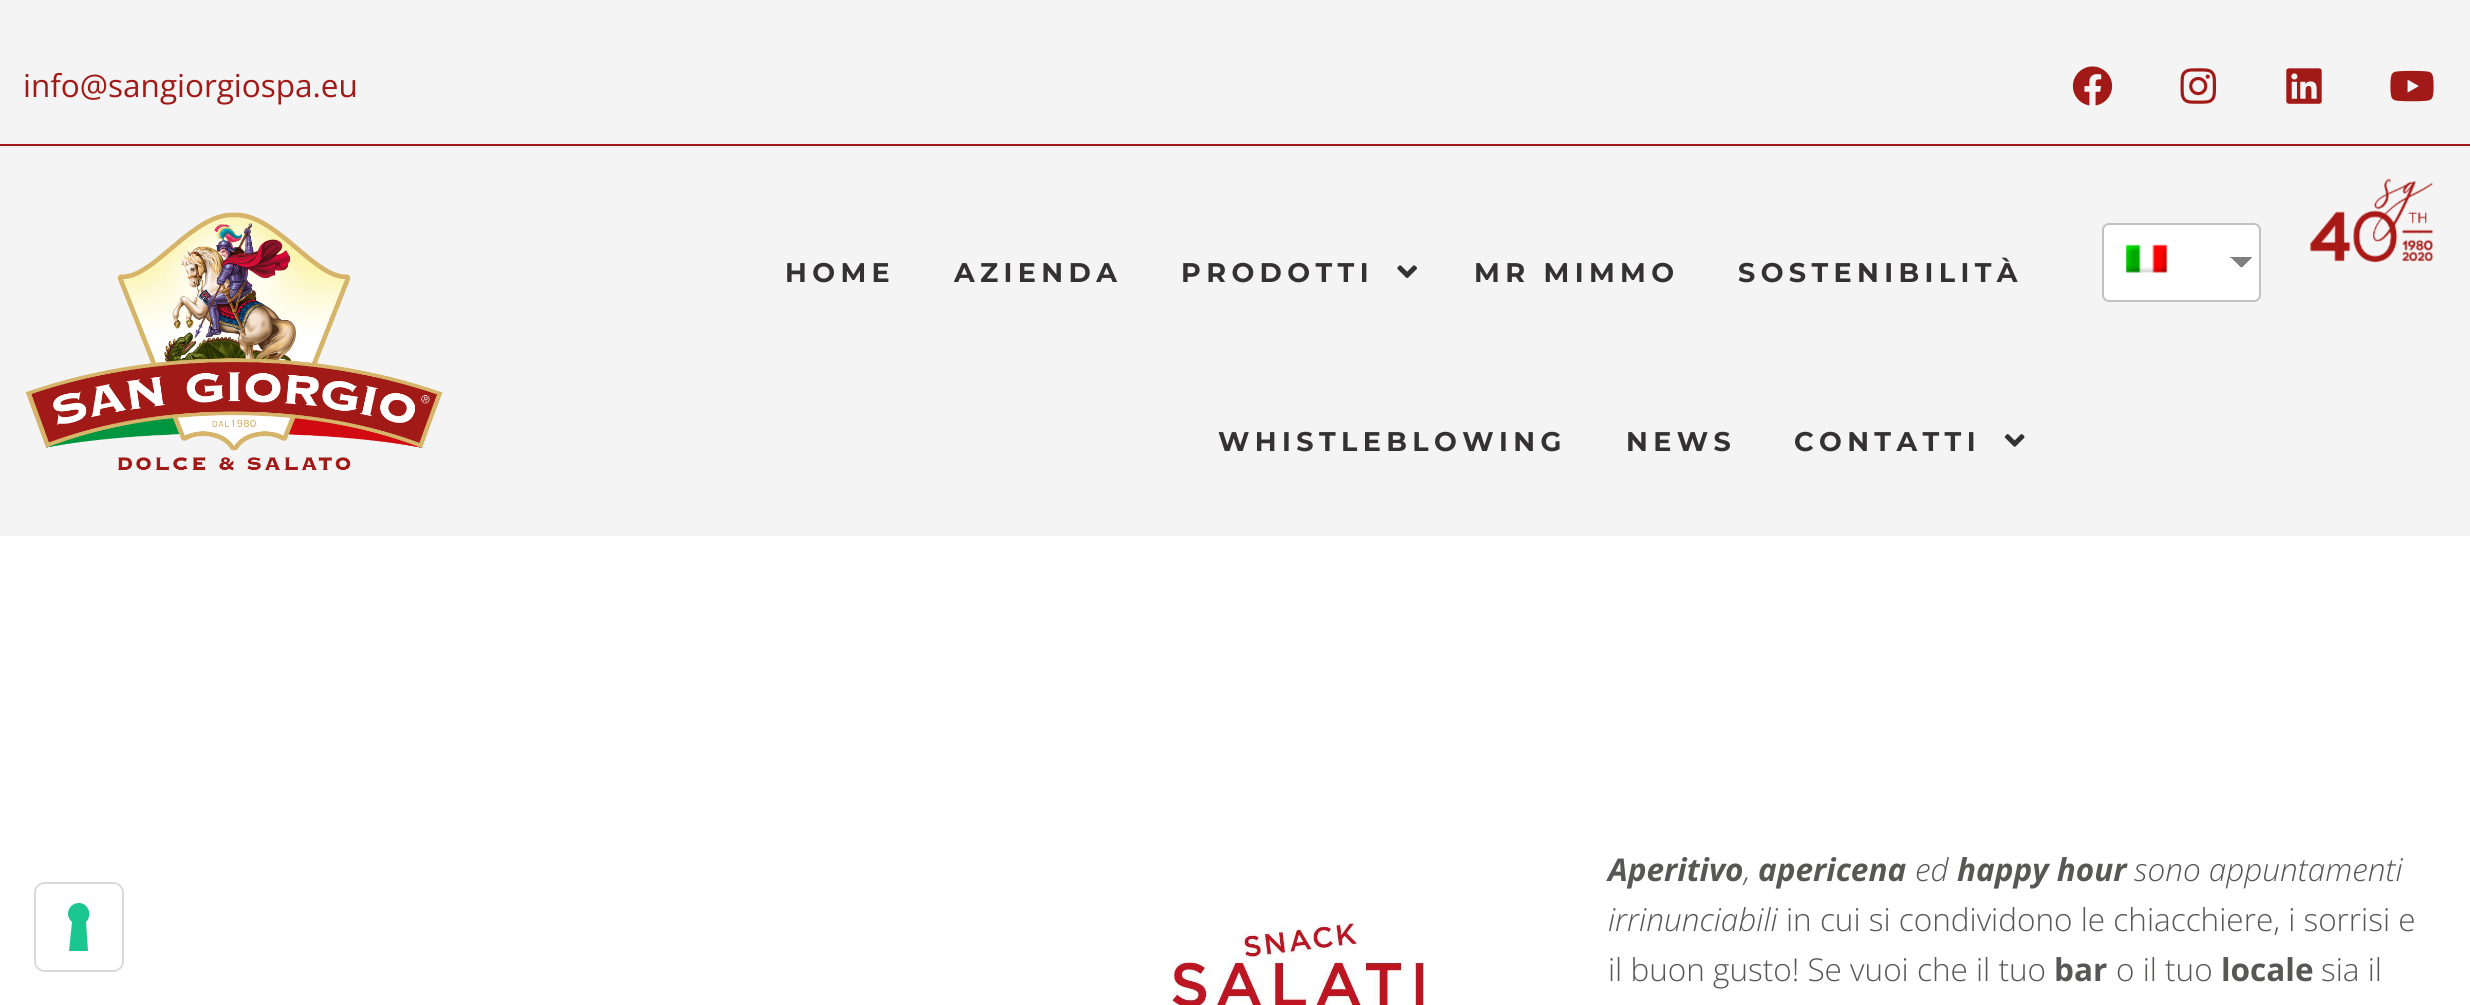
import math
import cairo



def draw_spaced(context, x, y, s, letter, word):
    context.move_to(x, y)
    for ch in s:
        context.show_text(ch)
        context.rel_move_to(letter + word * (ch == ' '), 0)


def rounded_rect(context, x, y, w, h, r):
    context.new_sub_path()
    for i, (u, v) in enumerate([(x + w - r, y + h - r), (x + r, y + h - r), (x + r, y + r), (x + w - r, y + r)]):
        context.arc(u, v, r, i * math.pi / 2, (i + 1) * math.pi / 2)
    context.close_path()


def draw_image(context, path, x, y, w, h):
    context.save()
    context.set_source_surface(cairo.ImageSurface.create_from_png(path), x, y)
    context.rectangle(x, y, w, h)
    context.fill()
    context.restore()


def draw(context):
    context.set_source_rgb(1, 1, 1)
    context.paint()
    context.set_source_rgb(244 / 255, 244 / 255, 244 / 255)
    context.rectangle(0, 0, 2470, 144)
    context.fill()
    context.set_source_rgb(162 / 255, 26 / 255, 23 / 255)
    context.rectangle(0, 144, 2470, 2)
    context.fill()
    draw_image(context, "images/1.png", 2072, 66, 41, 40)
    draw_image(context, "images/2.png", 2180, 68, 37, 36)
    draw_image(context, "images/3.png", 2286, 68, 36, 36)
    draw_image(context, "images/4.png", 2390, 70, 44, 32)
    context.set_source_rgb(244 / 255, 244 / 255, 244 / 255)
    context.rectangle(0, 146, 2470, 390)
    context.fill()
    draw_image(context, "images/5.png", 25, 212, 418, 259)
    draw_image(context, "images/6.png", 1397, 265, 20, 13)
    draw_image(context, "images/7.png", 2004, 434, 21, 13)
    context.set_source_rgb(1, 1, 1)
    rounded_rect(context, 2102, 223, 159, 79, 7)
    context.fill()
    gradient = cairo.LinearGradient(2241, 257, 2252, 268)
    gradient.add_color_stop_rgba(0.5, 128 / 255, 128 / 255, 128 / 255, 1)
    gradient.add_color_stop_rgba(0.5, 1, 1, 1, 1)
    context.set_source(gradient)
    context.rectangle(2241, 257, 11, 10)
    context.fill()
    gradient = cairo.LinearGradient(2230, 268, 2241, 257)
    gradient.add_color_stop_rgba(0.5, 1, 1, 1, 1)
    gradient.add_color_stop_rgba(0.5, 128 / 255, 128 / 255, 128 / 255, 1)
    context.set_source(gradient)
    context.rectangle(2230, 257, 11, 10)
    context.fill()
    rounded_rect(context, 2103, 224, 157, 77, 6)
    context.set_source_rgb(193 / 255, 193 / 255, 193 / 255)
    context.stroke()
    draw_image(context, "images/8.png", 2126, 244, 42, 29)
    draw_image(context, "images/9.png", 2310, 178, 124, 85)
    draw_image(context, "images/10.png", 1168, 916, 256, 89)
    rounded_rect(context, 35, 883, 88, 88, 10)
    context.set_source_rgb(217 / 255, 217 / 255, 217 / 255)
    context.stroke()
    context.set_source_rgb(1, 1, 1)
    rounded_rect(context, 36, 884, 86, 86, 9)
    context.fill()
    context.set_source_rgb(28 / 255, 198 / 255, 145 / 255)
    context.set_fill_rule(cairo.FillRule.EVEN_ODD)
    context.new_path()
    context.move_to(79, 903)
    context.curve_to(88, 903, 93, 915, 86, 922)
    context.line_to(88, 951)
    context.line_to(69, 951)
    context.line_to(72, 922)
    context.curve_to(64, 915, 69, 903, 79, 903)
    context.close_path()
    context.fill()
    context.select_font_face("Open Sans")
    context.set_font_size(31.5)
    context.set_source_rgb(162 / 255, 26 / 255, 23 / 255)
    context.move_to(23, 97)
    context.show_text("info@sangiorgiospa.eu")
    context.select_font_face("Montserrat", cairo.FontSlant.NORMAL, cairo.FontWeight.BOLD)
    context.set_font_size(27)
    context.set_source_rgb(51 / 255, 49 / 255, 50 / 255)
    draw_spaced(context, 785, 282, "HOME", 5.4, 0)
    draw_spaced(context, 954, 282, "AZIENDA", 5.4, 0)
    draw_spaced(context, 1181, 282, "PRODOTTI", 5.4, 0)
    draw_spaced(context, 1474, 282, "MR MIMMO", 5.4, 0)
    draw_spaced(context, 1738, 282, "SOSTENIBILITÀ", 5.4, 0)
    draw_spaced(context, 1218, 451, "WHISTLEBLOWING", 5.4, 0)
    draw_spaced(context, 1626, 451, "NEWS", 5.4, 0)
    draw_spaced(context, 1794, 451, "CONTATTI", 5.4, 0)
    context.select_font_face("Open Sans", cairo.FontSlant.ITALIC, cairo.FontWeight.BOLD)
    context.set_font_size(31.5)
    context.set_source_rgb(87 / 255, 87 / 255, 86 / 255)
    context.move_to(1608, 881)
    context.show_text("Aperitivo")
    context.select_font_face("Open Sans Light", cairo.FontSlant.ITALIC)
    context.move_to(1744, 881)
    context.show_text(",")
    context.select_font_face("Open Sans", cairo.FontSlant.ITALIC, cairo.FontWeight.BOLD)
    context.move_to(1758, 881)
    context.show_text("apericena")
    context.select_font_face("Open Sans Light", cairo.FontSlant.ITALIC)
    context.move_to(1915, 881)
    context.show_text("ed")
    context.select_font_face("Open Sans", cairo.FontSlant.ITALIC, cairo.FontWeight.BOLD)
    context.move_to(1957, 881)
    context.show_text("happy hour")
    context.select_font_face("Open Sans Light", cairo.FontSlant.ITALIC)
    context.move_to(2134, 881)
    context.show_text("sono appuntamenti")
    context.move_to(1608, 931)
    context.show_text("irrinunciabili")
    context.select_font_face("Open Sans Light")
    context.move_to(1786, 931)
    context.show_text("in cui si condividono le chiacchiere, i sorrisi e")
    context.move_to(1608, 981)
    context.show_text("il buon gusto! Se vuoi che il tuo")
    context.select_font_face("Open Sans", cairo.FontSlant.NORMAL, cairo.FontWeight.BOLD)
    context.move_to(2054, 981)
    context.show_text("bar")
    context.select_font_face("Open Sans Light")
    context.move_to(2116, 981)
    context.show_text("o il tuo")
    context.select_font_face("Open Sans", cairo.FontSlant.NORMAL, cairo.FontWeight.BOLD)
    context.move_to(2221, 981)
    context.show_text("locale")
    context.select_font_face("Open Sans Light")
    context.move_to(2321, 981)
    context.show_text("sia il")


surface = cairo.ImageSurface(cairo.Format.RGB24, 2470, 1005)
context = cairo.Context(surface)
options = cairo.FontOptions()
options.set_hint_metrics(cairo.HintMetrics.OFF)
options.set_hint_style(cairo.HintStyle.NONE)
context.set_font_options(options)
context.set_miter_limit(4)
draw(context)
surface.write_to_png("out.png")
